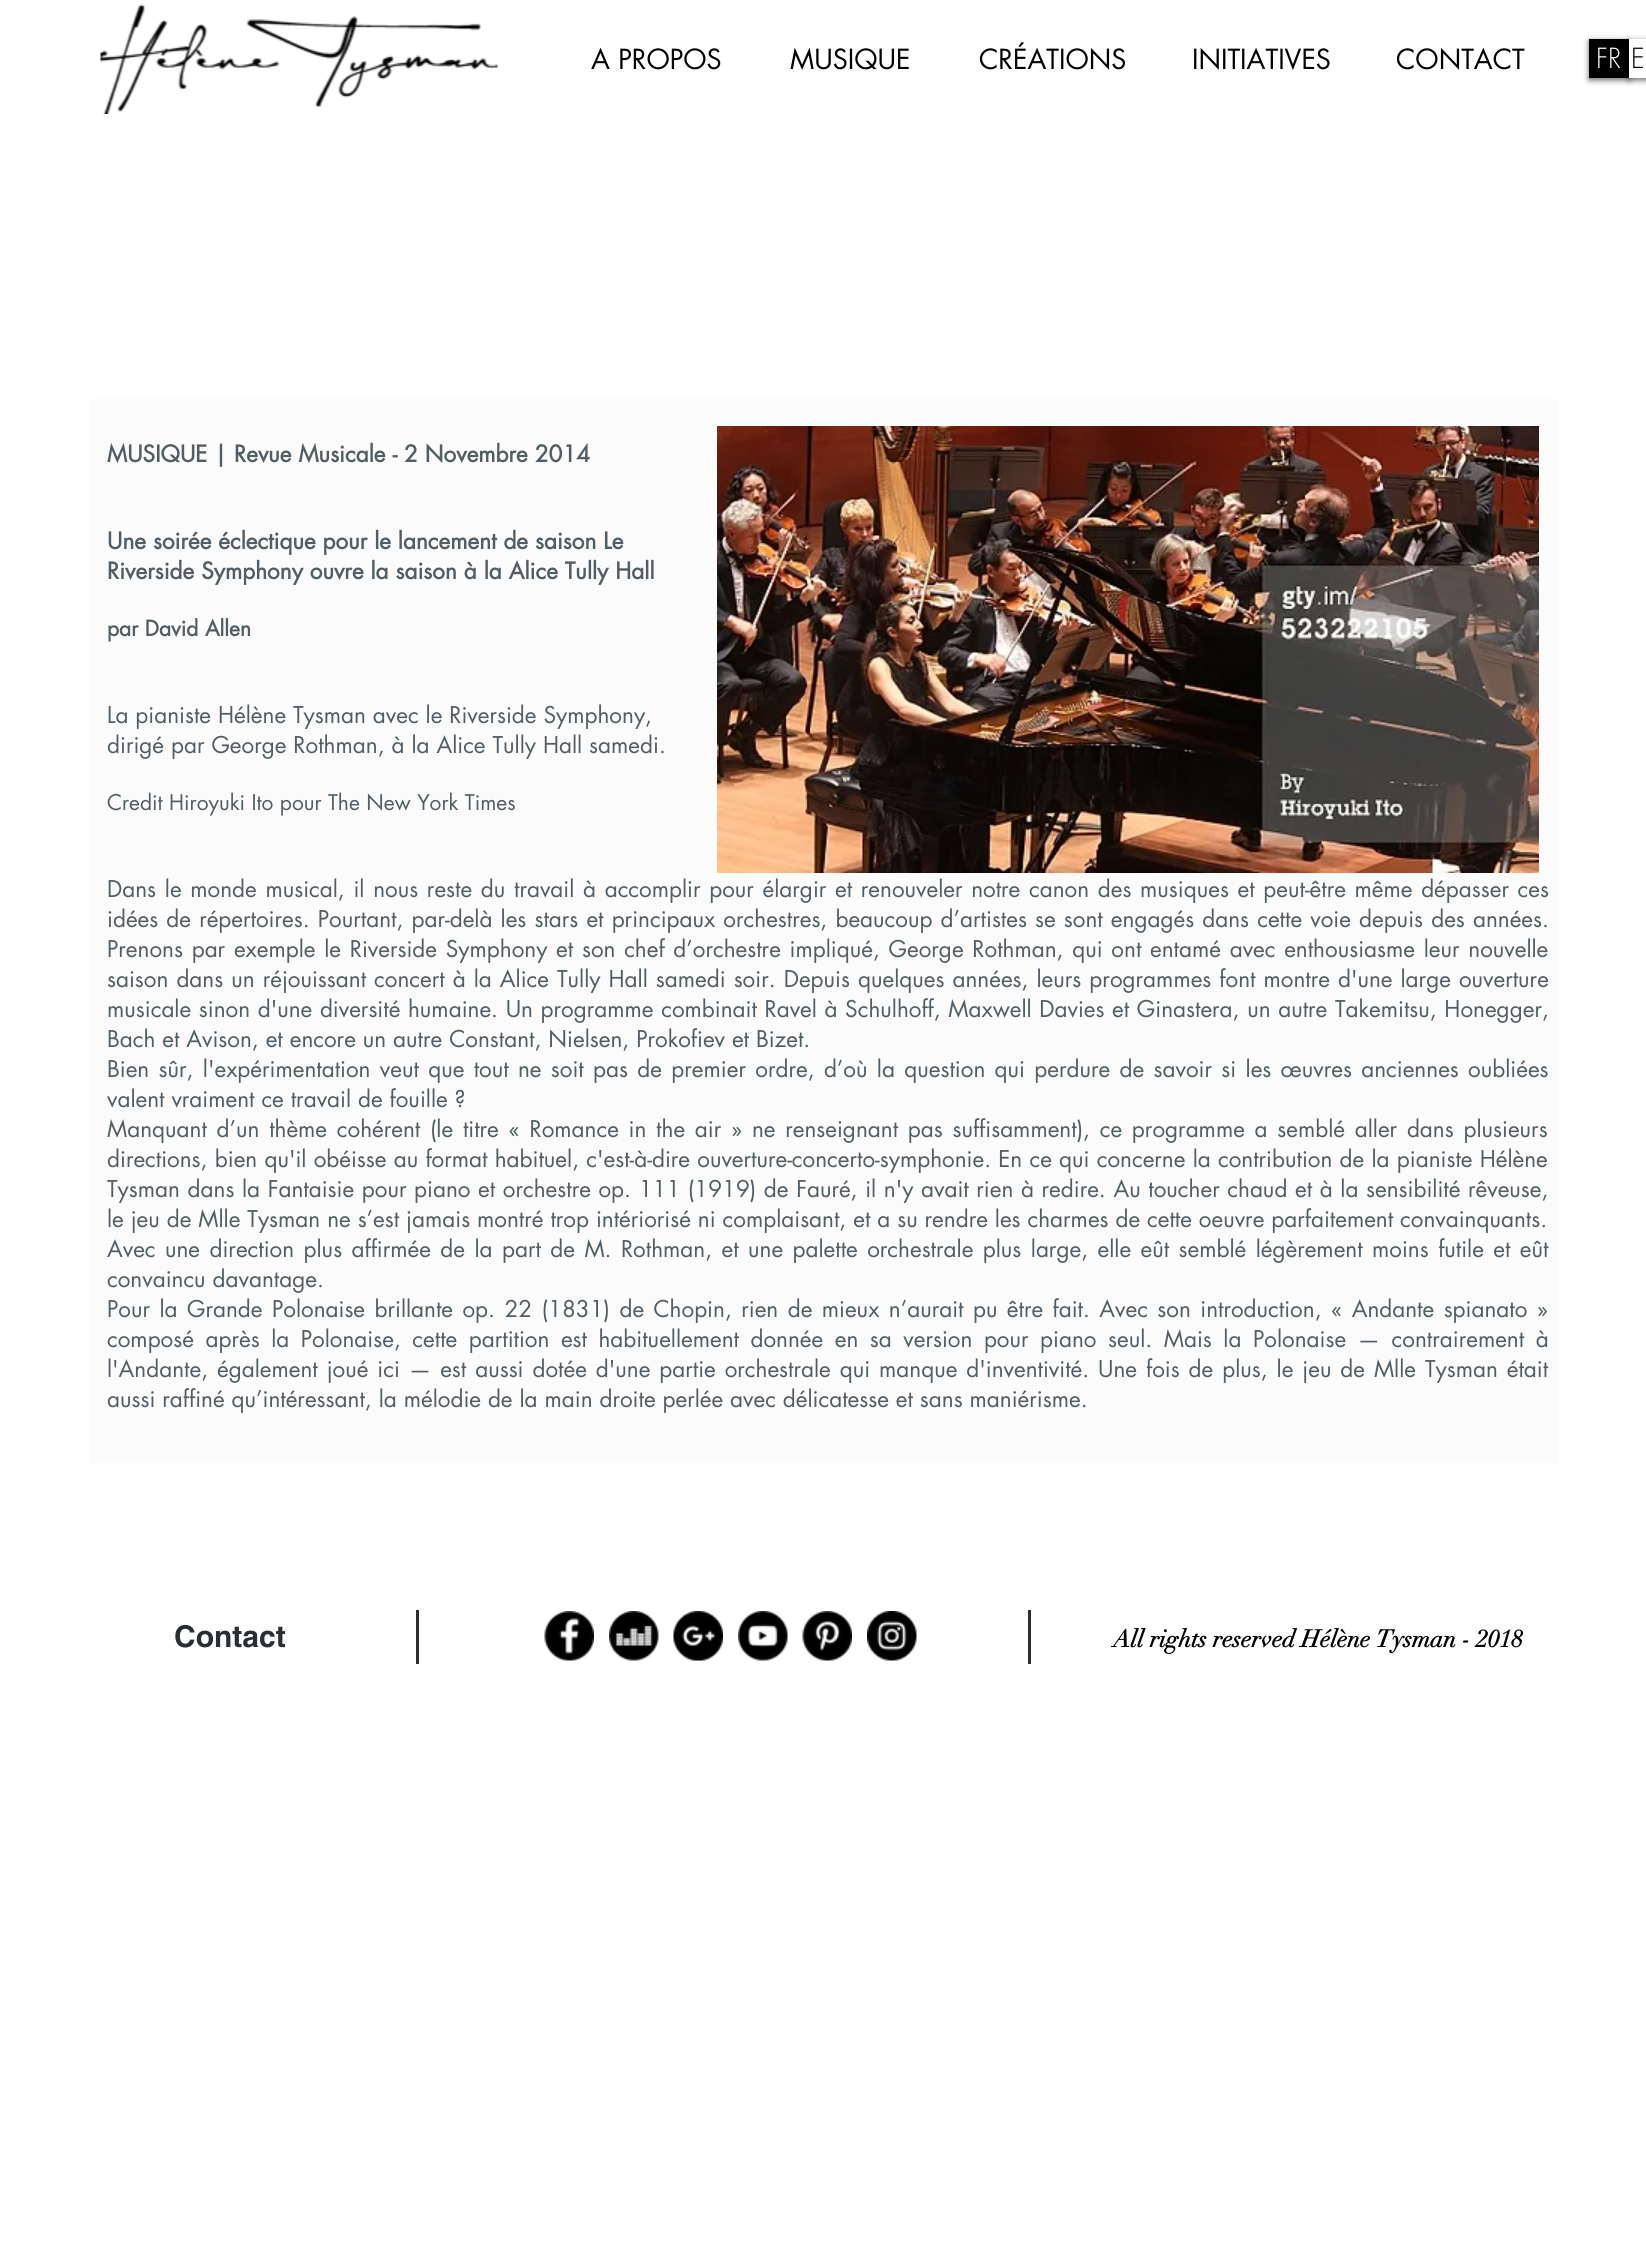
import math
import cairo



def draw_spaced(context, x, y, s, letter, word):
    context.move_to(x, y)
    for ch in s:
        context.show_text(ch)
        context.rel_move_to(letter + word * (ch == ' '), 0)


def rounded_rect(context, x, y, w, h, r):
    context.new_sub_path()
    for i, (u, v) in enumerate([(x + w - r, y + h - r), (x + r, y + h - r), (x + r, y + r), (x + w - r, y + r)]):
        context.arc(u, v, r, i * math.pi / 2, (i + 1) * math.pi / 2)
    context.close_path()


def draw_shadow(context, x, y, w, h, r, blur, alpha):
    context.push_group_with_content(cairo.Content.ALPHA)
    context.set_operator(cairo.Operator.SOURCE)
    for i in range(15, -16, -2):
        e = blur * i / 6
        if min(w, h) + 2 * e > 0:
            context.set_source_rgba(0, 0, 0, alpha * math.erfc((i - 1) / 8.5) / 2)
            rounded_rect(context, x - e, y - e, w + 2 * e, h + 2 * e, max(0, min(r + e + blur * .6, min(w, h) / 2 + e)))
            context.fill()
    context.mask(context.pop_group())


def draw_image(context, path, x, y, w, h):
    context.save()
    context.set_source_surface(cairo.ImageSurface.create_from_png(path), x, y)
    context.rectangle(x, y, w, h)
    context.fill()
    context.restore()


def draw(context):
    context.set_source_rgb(1, 1, 1)
    context.paint()
    draw_image(context, "images/1.png", 100, 4, 398, 110)
    context.set_source_rgb(0, 0, 0)
    draw_shadow(context, 1589, 41, 40, 39, 0, 3, 0.6)
    context.set_source_rgb(0, 0, 0)
    context.rectangle(1589, 39, 40, 39)
    context.fill()
    context.set_source_rgb(0, 0, 0)
    draw_shadow(context, 1629, 41, 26, 39, 0, 3, 0.6)
    context.set_source_rgb(1, 1, 1)
    context.rectangle(1629, 39, 17, 39)
    context.fill()
    context.set_source_rgb(251 / 255, 251 / 255, 251 / 255)
    context.rectangle(89, 399, 1470, 1064)
    context.fill()
    draw_image(context, "images/2.png", 717, 426, 822, 447)
    context.set_source_rgb(41 / 255, 47 / 255, 51 / 255)
    context.rectangle(416, 1610, 3, 54)
    context.fill()
    draw_image(context, "images/3.png", 544, 1611, 50, 50)
    draw_image(context, "images/4.png", 609, 1611, 50, 50)
    draw_image(context, "images/5.png", 673, 1611, 50, 50)
    draw_image(context, "images/6.png", 738, 1611, 50, 50)
    draw_image(context, "images/7.png", 802, 1611, 50, 50)
    draw_image(context, "images/8.png", 867, 1611, 50, 50)
    context.rectangle(1028, 1610, 3, 54)
    context.fill()
    context.select_font_face("futura")
    context.set_font_size(27)
    context.set_source_rgb(0, 0, 0)
    context.move_to(591, 69)
    context.show_text("A PROPOS")
    context.move_to(790, 69)
    context.show_text("MUSIQUE")
    context.move_to(979, 69)
    context.show_text("CRÉATIONS")
    context.move_to(1192, 69)
    context.show_text("INITIATIVES")
    context.move_to(1396, 69)
    context.show_text("CONTACT")
    context.select_font_face("futura Light")
    context.set_source_rgb(1, 1, 1)
    context.move_to(1596, 68)
    context.show_text("FR")
    context.set_source_rgb(0, 0, 0)
    context.move_to(1631, 68)
    context.show_text("E")
    context.select_font_face("futura", cairo.FontSlant.NORMAL, cairo.FontWeight.BOLD)
    context.set_font_size(22.5)
    context.set_source_rgb(81 / 255, 94 / 255, 101 / 255)
    context.move_to(107, 462)
    context.show_text("MUSIQUE | Revue Musicale - 2 Novembre 2014")
    context.move_to(107, 549)
    context.show_text("Une soirée éclectique pour le lancement de saison Le")
    context.move_to(107, 579)
    context.show_text("Riverside Symphony ouvre la saison à la Alice Tully Hall")
    context.set_font_size(21)
    context.move_to(107, 636)
    context.show_text("par David Allen")
    context.select_font_face("futura")
    context.set_font_size(22.5)
    context.move_to(107, 723)
    context.show_text("La pianiste Hélène Tysman avec le Riverside Symphony,")
    context.move_to(107, 753)
    context.show_text("dirigé par George Rothman, à la Alice Tully Hall samedi.")
    context.set_font_size(21)
    context.move_to(107, 810)
    context.show_text("Credit Hiroyuki Ito pour The New York Times")
    context.set_font_size(22.5)
    draw_spaced(context, 107, 897, "Dans le monde musical, il nous reste du travail à accomplir pour élargir et renouveler notre canon des musiques et peut-être même dépasser ces", 0, 1.75)
    draw_spaced(context, 107, 927, "idées de répertoires. Pourtant, par-delà les stars et principaux orchestres, beaucoup d’artistes se sont engagés dans cette voie depuis des années.", 0, 1.2)
    draw_spaced(context, 107, 957, "Prenons par exemple le Riverside Symphony et son chef d’orchestre impliqué, George Rothman, qui ont entamé avec enthousiasme leur nouvelle", 0, 1.8)
    draw_spaced(context, 107, 987, "saison dans un réjouissant concert à la Alice Tully Hall samedi soir. Depuis quelques années, leurs programmes font montre d'une large ouverture", 0, 1.1)
    draw_spaced(context, 107, 1017, "musicale sinon d'une diversité humaine. Un programme combinait Ravel à Schulhoff, Maxwell Davies et Ginastera, un autre Takemitsu, Honegger,", 0, 0.7)
    context.move_to(107, 1047)
    context.show_text("Bach et Avison, et encore un autre Constant, Nielsen, Prokofiev et Bizet.")
    draw_spaced(context, 107, 1077, "Bien sûr, l'expérimentation veut que tout ne soit pas de premier ordre, d’où la question qui perdure de savoir si les œuvres anciennes oubliées", 0, 2.4)
    context.move_to(107, 1107)
    context.show_text("valent vraiment ce travail de fouille ?")
    draw_spaced(context, 107, 1137, "Manquant d’un thème cohérent (le titre « Romance in the air » ne renseignant pas suffisamment), ce programme a semblé aller dans plusieurs", 0, 2.8)
    draw_spaced(context, 107, 1167, "directions, bien qu'il obéisse au format habituel, c'est-à-dire ouverture-concerto-symphonie. En ce qui concerne la contribution de la pianiste Hélène", 0, 0.3)
    draw_spaced(context, 107, 1197, "Tysman dans la Fantaisie pour piano et orchestre op. 111 (1919) de Fauré, il n'y avait rien à redire. Au toucher chaud et à la sensibilité rêveuse,", 0, 0.7)
    context.move_to(107, 1227)
    context.show_text("le jeu de Mlle Tysman ne s’est jamais montré trop intériorisé ni complaisant, et a su rendre les charmes de cette oeuvre parfaitement convainquants.")
    draw_spaced(context, 107, 1257, "Avec une direction plus affirmée de la part de M. Rothman, et une palette orchestrale plus large, elle eût semblé légèrement moins futile et eût", 0, 2.5)
    context.move_to(107, 1287)
    context.show_text("convaincu davantage.")
    draw_spaced(context, 107, 1317, "Pour la Grande Polonaise brillante op. 22 (1831) de Chopin, rien de mieux n’aurait pu être fait. Avec son introduction, « Andante spianato »", 0, 2.5)
    draw_spaced(context, 107, 1347, "composé après la Polonaise, cette partition est habituellement donnée en sa version pour piano seul. Mais la Polonaise — contrairement à", 0, 4.6)
    draw_spaced(context, 107, 1377, "l'Andante, également joué ici — est aussi dotée d'une partie orchestrale qui manque d'inventivité. Une fois de plus, le jeu de Mlle Tysman était", 0, 2)
    context.move_to(107, 1407)
    context.show_text("aussi raffiné qu’intéressant, la mélodie de la main droite perlée avec délicatesse et sans maniérisme.")
    context.select_font_face("helvetica", cairo.FontSlant.NORMAL, cairo.FontWeight.BOLD)
    context.set_font_size(30)
    context.set_source_rgb(41 / 255, 47 / 255, 51 / 255)
    context.move_to(174, 1647)
    context.show_text("Contact")
    context.select_font_face("didot", cairo.FontSlant.NORMAL, cairo.FontWeight.BOLD)
    context.set_font_size(24)
    context.set_source_rgb(0, 0, 0)
    context.move_to(1113, 1647)
    context.show_text("All rights reserved Hélène Tysman - 2018")


surface = cairo.ImageSurface(cairo.Format.RGB24, 1646, 2258)
context = cairo.Context(surface)
options = cairo.FontOptions()
options.set_hint_metrics(cairo.HintMetrics.OFF)
options.set_hint_style(cairo.HintStyle.NONE)
context.set_font_options(options)
context.set_miter_limit(4)
draw(context)
surface.write_to_png("out.png")
